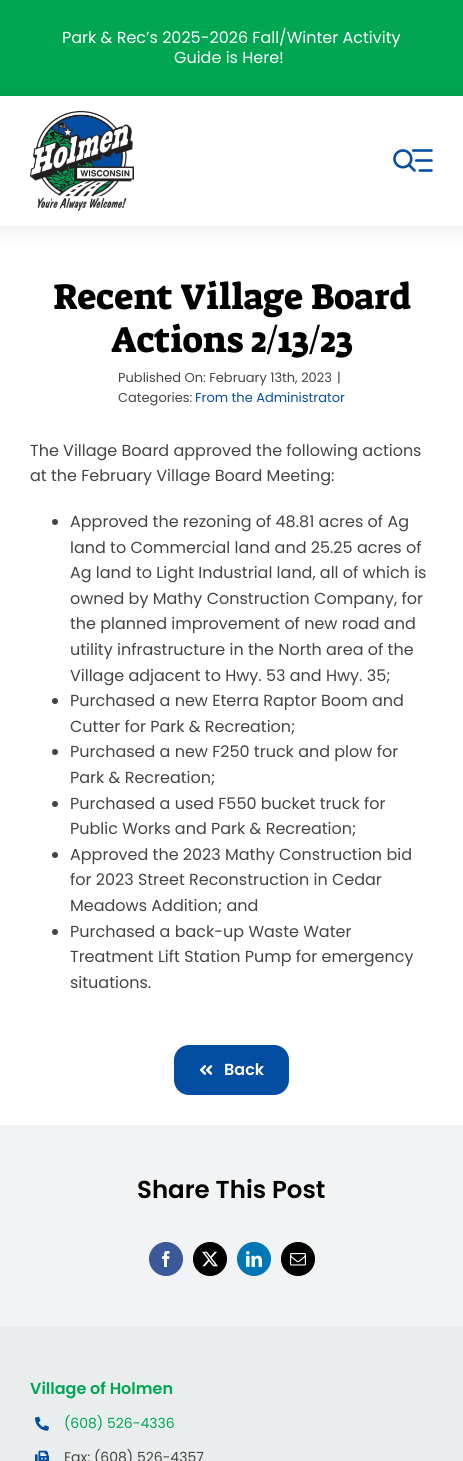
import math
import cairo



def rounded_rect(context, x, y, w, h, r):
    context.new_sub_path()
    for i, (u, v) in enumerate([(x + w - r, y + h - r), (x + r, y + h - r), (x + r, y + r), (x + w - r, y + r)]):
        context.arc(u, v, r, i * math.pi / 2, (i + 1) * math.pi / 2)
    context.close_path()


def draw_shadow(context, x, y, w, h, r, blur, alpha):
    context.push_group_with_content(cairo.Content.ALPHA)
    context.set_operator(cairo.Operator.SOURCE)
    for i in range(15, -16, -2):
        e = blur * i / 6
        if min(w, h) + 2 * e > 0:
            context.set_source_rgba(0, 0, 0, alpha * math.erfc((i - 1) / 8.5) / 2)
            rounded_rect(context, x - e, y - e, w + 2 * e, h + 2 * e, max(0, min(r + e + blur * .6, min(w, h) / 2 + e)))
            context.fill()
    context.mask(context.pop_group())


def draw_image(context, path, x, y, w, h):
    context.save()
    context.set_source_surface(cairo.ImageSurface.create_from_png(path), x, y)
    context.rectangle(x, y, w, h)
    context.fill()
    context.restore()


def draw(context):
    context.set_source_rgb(1, 1, 1)
    context.paint()
    context.set_source_rgb(0, 166 / 255, 81 / 255)
    context.rectangle(0, 0, 463, 96)
    context.fill()
    context.save()
    context.set_fill_rule(cairo.FillRule.EVEN_ODD)
    context.new_path()
    context.move_to(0, 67)
    context.line_to(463, 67)
    context.line_to(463, 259)
    context.line_to(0, 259)
    context.close_path()
    context.move_to(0, 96)
    context.line_to(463, 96)
    context.line_to(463, 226)
    context.line_to(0, 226)
    context.close_path()
    context.clip()
    context.set_source_rgb(0, 0, 0)
    draw_shadow(context, 0, 98, 463, 130, 0, 10, 0.1)
    context.restore()
    draw_image(context, "images/1.png", 30, 111, 104, 100)
    draw_image(context, "images/2.png", 393, 149, 40, 23)
    context.set_source_rgb(68 / 255, 68 / 255, 68 / 255)
    context.arc(55, 522, 3, 0, 2 * math.pi)
    context.fill()
    context.arc(55, 701, 3, 0, 2 * math.pi)
    context.fill()
    context.arc(55, 752, 3, 0, 2 * math.pi)
    context.fill()
    context.arc(55, 804, 3, 0, 2 * math.pi)
    context.fill()
    context.arc(55, 855, 3, 0, 2 * math.pi)
    context.fill()
    context.arc(55, 932, 3, 0, 2 * math.pi)
    context.fill()
    context.set_source_rgb(3 / 255, 78 / 255, 162 / 255)
    rounded_rect(context, 174, 1045, 115, 50, 15)
    context.fill()
    draw_image(context, "images/3.png", 199, 1065, 14, 10)
    context.set_source_rgb(242 / 255, 243 / 255, 245 / 255)
    context.rectangle(0, 1125, 463, 201)
    context.fill()
    context.set_source_rgb(59 / 255, 89 / 255, 152 / 255)
    context.arc(166, 1259, 16.5, 0, 2 * math.pi)
    context.fill_preserve()
    context.set_line_width(1)
    context.stroke()
    draw_image(context, "images/4.png", 162, 1251, 8, 16)
    context.set_source_rgb(0, 0, 0)
    context.arc(210, 1259, 16.5, 0, 2 * math.pi)
    context.fill_preserve()
    context.stroke()
    draw_image(context, "images/5.png", 202, 1251, 16, 16)
    context.set_source_rgb(0, 119 / 255, 181 / 255)
    context.arc(254, 1259, 16.5, 0, 2 * math.pi)
    context.fill_preserve()
    context.stroke()
    draw_image(context, "images/6.png", 246, 1251, 16, 16)
    context.set_source_rgb(0, 0, 0)
    context.arc(298, 1259, 16.5, 0, 2 * math.pi)
    context.fill_preserve()
    context.stroke()
    draw_image(context, "images/7.png", 290, 1253, 16, 13)
    context.set_source_rgb(233 / 255, 237 / 255, 238 / 255)
    context.rectangle(0, 1326, 463, 135)
    context.fill()
    draw_image(context, "images/8.png", 35, 1416, 14, 15)
    draw_image(context, "images/9.png", 35, 1450, 14, 11)
    context.select_font_face("Poppins")
    context.set_font_size(16)
    context.set_source_rgb(1, 1, 1)
    context.move_to(62, 43)
    context.show_text("Park & Rec’s 2025-2026 Fall/Winter Activity")
    context.move_to(174, 63)
    context.show_text("Guide is Here!")
    context.select_font_face("Suez One")
    context.set_font_size(36.25)
    context.set_source_rgb(0, 0, 0)
    context.move_to(53, 309)
    context.show_text("Recent Village Board")
    context.move_to(111, 352)
    context.show_text("Actions 2/13/23")
    context.select_font_face("Poppins")
    context.set_font_size(13)
    context.set_source_rgb(68 / 255, 68 / 255, 68 / 255)
    context.move_to(118, 382)
    context.show_text("Published On: February 13th, 2023")
    context.move_to(337, 382)
    context.show_text("|")
    context.move_to(118, 402)
    context.show_text("Categories:")
    context.set_source_rgb(3 / 255, 78 / 255, 162 / 255)
    context.move_to(195, 402)
    context.show_text("From the Administrator")
    context.set_font_size(16)
    context.set_source_rgb(68 / 255, 68 / 255, 68 / 255)
    context.move_to(30, 456)
    context.show_text("The Village Board approved the following actions")
    context.move_to(30, 481)
    context.show_text("at the February Village Board Meeting:")
    context.move_to(70, 527)
    context.show_text("Approved the rezoning of 48.81 acres of Ag")
    context.move_to(70, 553)
    context.show_text("land to Commercial land and 25.25 acres of")
    context.move_to(70, 578)
    context.show_text("Ag land to Light Industrial land, all of which is")
    context.move_to(70, 604)
    context.show_text("owned by Mathy Construction Company, for")
    context.move_to(70, 629)
    context.show_text("the planned improvement of new road and")
    context.move_to(70, 655)
    context.show_text("utility infrastructure in the North area of the")
    context.move_to(70, 681)
    context.show_text("Village adjacent to Hwy. 53 and Hwy. 35;")
    context.move_to(70, 706)
    context.show_text("Purchased a new Eterra Raptor Boom and")
    context.move_to(70, 732)
    context.show_text("Cutter for Park & Recreation;")
    context.move_to(70, 757)
    context.show_text("Purchased a new F250 truck and plow for")
    context.move_to(70, 783)
    context.show_text("Park & Recreation;")
    context.move_to(70, 809)
    context.show_text("Purchased a used F550 bucket truck for")
    context.move_to(70, 834)
    context.show_text("Public Works and Park & Recreation;")
    context.move_to(70, 860)
    context.show_text("Approved the 2023 Mathy Construction bid")
    context.move_to(70, 885)
    context.show_text("for 2023 Street Reconstruction in Cedar")
    context.move_to(70, 911)
    context.show_text("Meadows Addition; and")
    context.move_to(70, 937)
    context.show_text("Purchased a back-up Waste Water")
    context.move_to(70, 962)
    context.show_text("Treatment Lift Station Pump for emergency")
    context.move_to(70, 988)
    context.show_text("situations.")
    context.select_font_face("Poppins SemiBold")
    context.set_source_rgb(1, 1, 1)
    context.move_to(224, 1075)
    context.show_text("Back")
    context.set_font_size(24.5)
    context.set_source_rgb(0, 0, 0)
    context.move_to(137, 1198)
    context.show_text("Share This Post")
    context.set_font_size(16)
    context.set_source_rgb(0, 166 / 255, 81 / 255)
    context.move_to(30, 1394)
    context.show_text("Village of Holmen")
    context.select_font_face("Poppins")
    context.set_font_size(14)
    context.move_to(64, 1428)
    context.show_text("(608) 526-4336")
    context.set_source_rgb(68 / 255, 68 / 255, 68 / 255)
    context.move_to(64, 1462)
    context.show_text("Fax: (608) 526-4357")


surface = cairo.ImageSurface(cairo.Format.RGB24, 463, 1461)
context = cairo.Context(surface)
options = cairo.FontOptions()
options.set_hint_metrics(cairo.HintMetrics.OFF)
options.set_hint_style(cairo.HintStyle.NONE)
context.set_font_options(options)
context.set_miter_limit(4)
draw(context)
surface.write_to_png("out.png")
